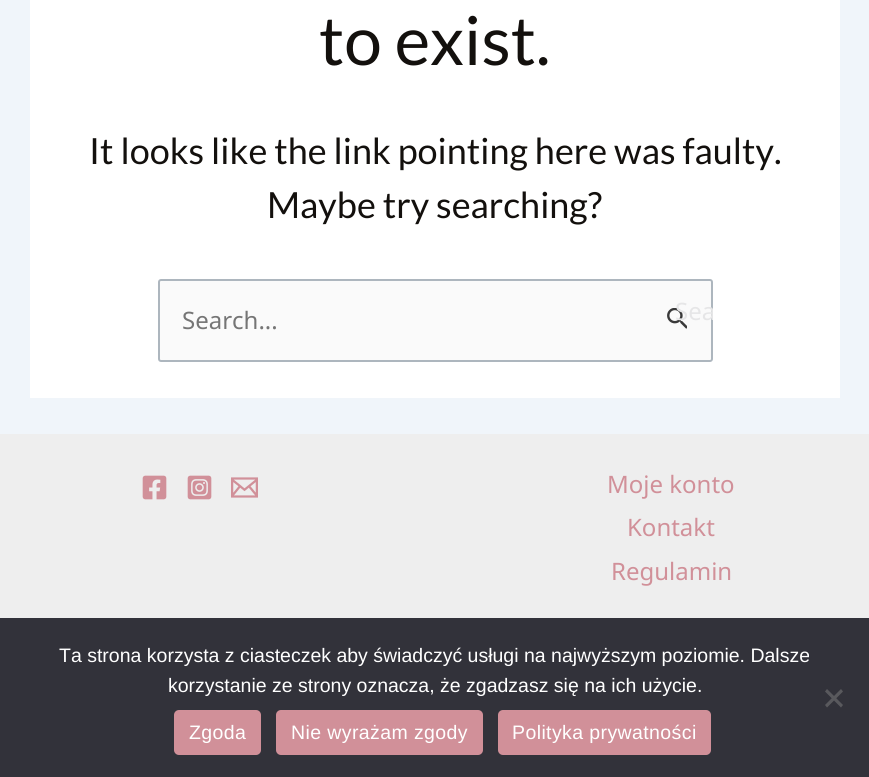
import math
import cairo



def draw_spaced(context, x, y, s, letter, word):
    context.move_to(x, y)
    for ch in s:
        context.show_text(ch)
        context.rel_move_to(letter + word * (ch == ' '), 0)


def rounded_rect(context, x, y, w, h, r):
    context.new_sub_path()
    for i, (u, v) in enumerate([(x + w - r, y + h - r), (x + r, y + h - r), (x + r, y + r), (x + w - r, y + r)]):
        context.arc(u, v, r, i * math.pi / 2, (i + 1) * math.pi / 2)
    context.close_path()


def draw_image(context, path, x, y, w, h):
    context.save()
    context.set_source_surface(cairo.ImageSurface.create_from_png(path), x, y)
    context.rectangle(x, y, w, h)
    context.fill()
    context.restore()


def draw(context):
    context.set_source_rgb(240 / 255, 245 / 255, 250 / 255)
    context.paint()
    context.set_source_rgb(1, 1, 1)
    context.rectangle(30, 0, 810, 398)
    context.fill()
    context.set_source_rgb(250 / 255, 250 / 255, 250 / 255)
    rounded_rect(context, 159, 280, 553, 81, 2)
    context.fill_preserve()
    context.set_source_rgb(173 / 255, 182 / 255, 190 / 255)
    context.stroke()
    draw_image(context, "images/1.png", 667, 308, 20, 21)
    context.set_source_rgb(238 / 255, 238 / 255, 238 / 255)
    context.rectangle(0, 434, 869, 184)
    context.fill()
    draw_image(context, "images/2.png", 142, 475, 25, 25)
    draw_image(context, "images/3.png", 187, 475, 25, 25)
    draw_image(context, "images/4.png", 231, 477, 27, 21)
    context.set_source_rgb(50 / 255, 50 / 255, 58 / 255)
    context.rectangle(0, 618, 869, 159)
    context.fill()
    context.set_source_rgb(89 / 255, 89 / 255, 93 / 255)
    context.new_path()
    context.move_to(841, 689)
    context.line_to(843, 691.5)
    context.line_to(827, 707.5)
    context.line_to(825, 705)
    context.close_path()
    context.fill()
    context.new_path()
    context.move_to(825, 691.5)
    context.line_to(827, 689)
    context.line_to(843, 705)
    context.line_to(841, 707.5)
    context.close_path()
    context.fill()
    context.set_source_rgb(209 / 255, 144 / 255, 153 / 255)
    rounded_rect(context, 174, 710, 87, 45, 5)
    context.fill()
    rounded_rect(context, 276, 710, 207, 45, 5)
    context.fill()
    rounded_rect(context, 498, 710, 213, 45, 5)
    context.fill()
    context.select_font_face("Lato")
    context.set_font_size(67.5)
    context.set_source_rgb(19 / 255, 16 / 255, 13 / 255)
    context.move_to(319, 65)
    context.show_text("to exist.")
    context.set_font_size(36)
    context.move_to(89, 164)
    context.show_text("It looks like the link pointing here was faulty.")
    context.move_to(267, 218)
    context.show_text("Maybe try searching?")
    context.select_font_face("Noto Sans")
    context.set_font_size(24)
    context.set_source_rgb(117 / 255, 117 / 255, 117 / 255)
    context.move_to(182, 329)
    context.show_text("Search...")
    context.save()
    rounded_rect(context, 645, 279, 68, 63, 3)
    context.clip()
    context.set_source_rgb(230 / 255, 230 / 255, 231 / 255)
    context.move_to(675, 320)
    context.show_text("Sea")
    context.restore()
    context.set_source_rgb(209 / 255, 144 / 255, 153 / 255)
    context.move_to(607, 493)
    context.show_text("Moje konto")
    context.move_to(627, 536)
    context.show_text("Kontakt")
    context.move_to(611, 580)
    context.show_text("Regulamin")
    context.select_font_face("Liberation Sans")
    context.set_font_size(19.5)
    context.set_source_rgb(1, 1, 1)
    context.move_to(59, 662)
    context.show_text("Ta strona korzysta z ciasteczek aby świadczyć usługi na najwyższym poziomie. Dalsze")
    context.move_to(168, 692)
    context.show_text("korzystanie ze strony oznacza, że zgadzasz się na ich użycie.")
    draw_spaced(context, 189, 739, "Zgoda", 0.4, 0)
    draw_spaced(context, 291, 739, "Nie wyrażam zgody", 0.4, 0)
    draw_spaced(context, 512, 739, "Polityka prywatności", 0.4, 0)


surface = cairo.ImageSurface(cairo.Format.RGB24, 869, 777)
context = cairo.Context(surface)
options = cairo.FontOptions()
options.set_hint_metrics(cairo.HintMetrics.OFF)
options.set_hint_style(cairo.HintStyle.NONE)
context.set_font_options(options)
context.set_miter_limit(4)
draw(context)
surface.write_to_png("out.png")
